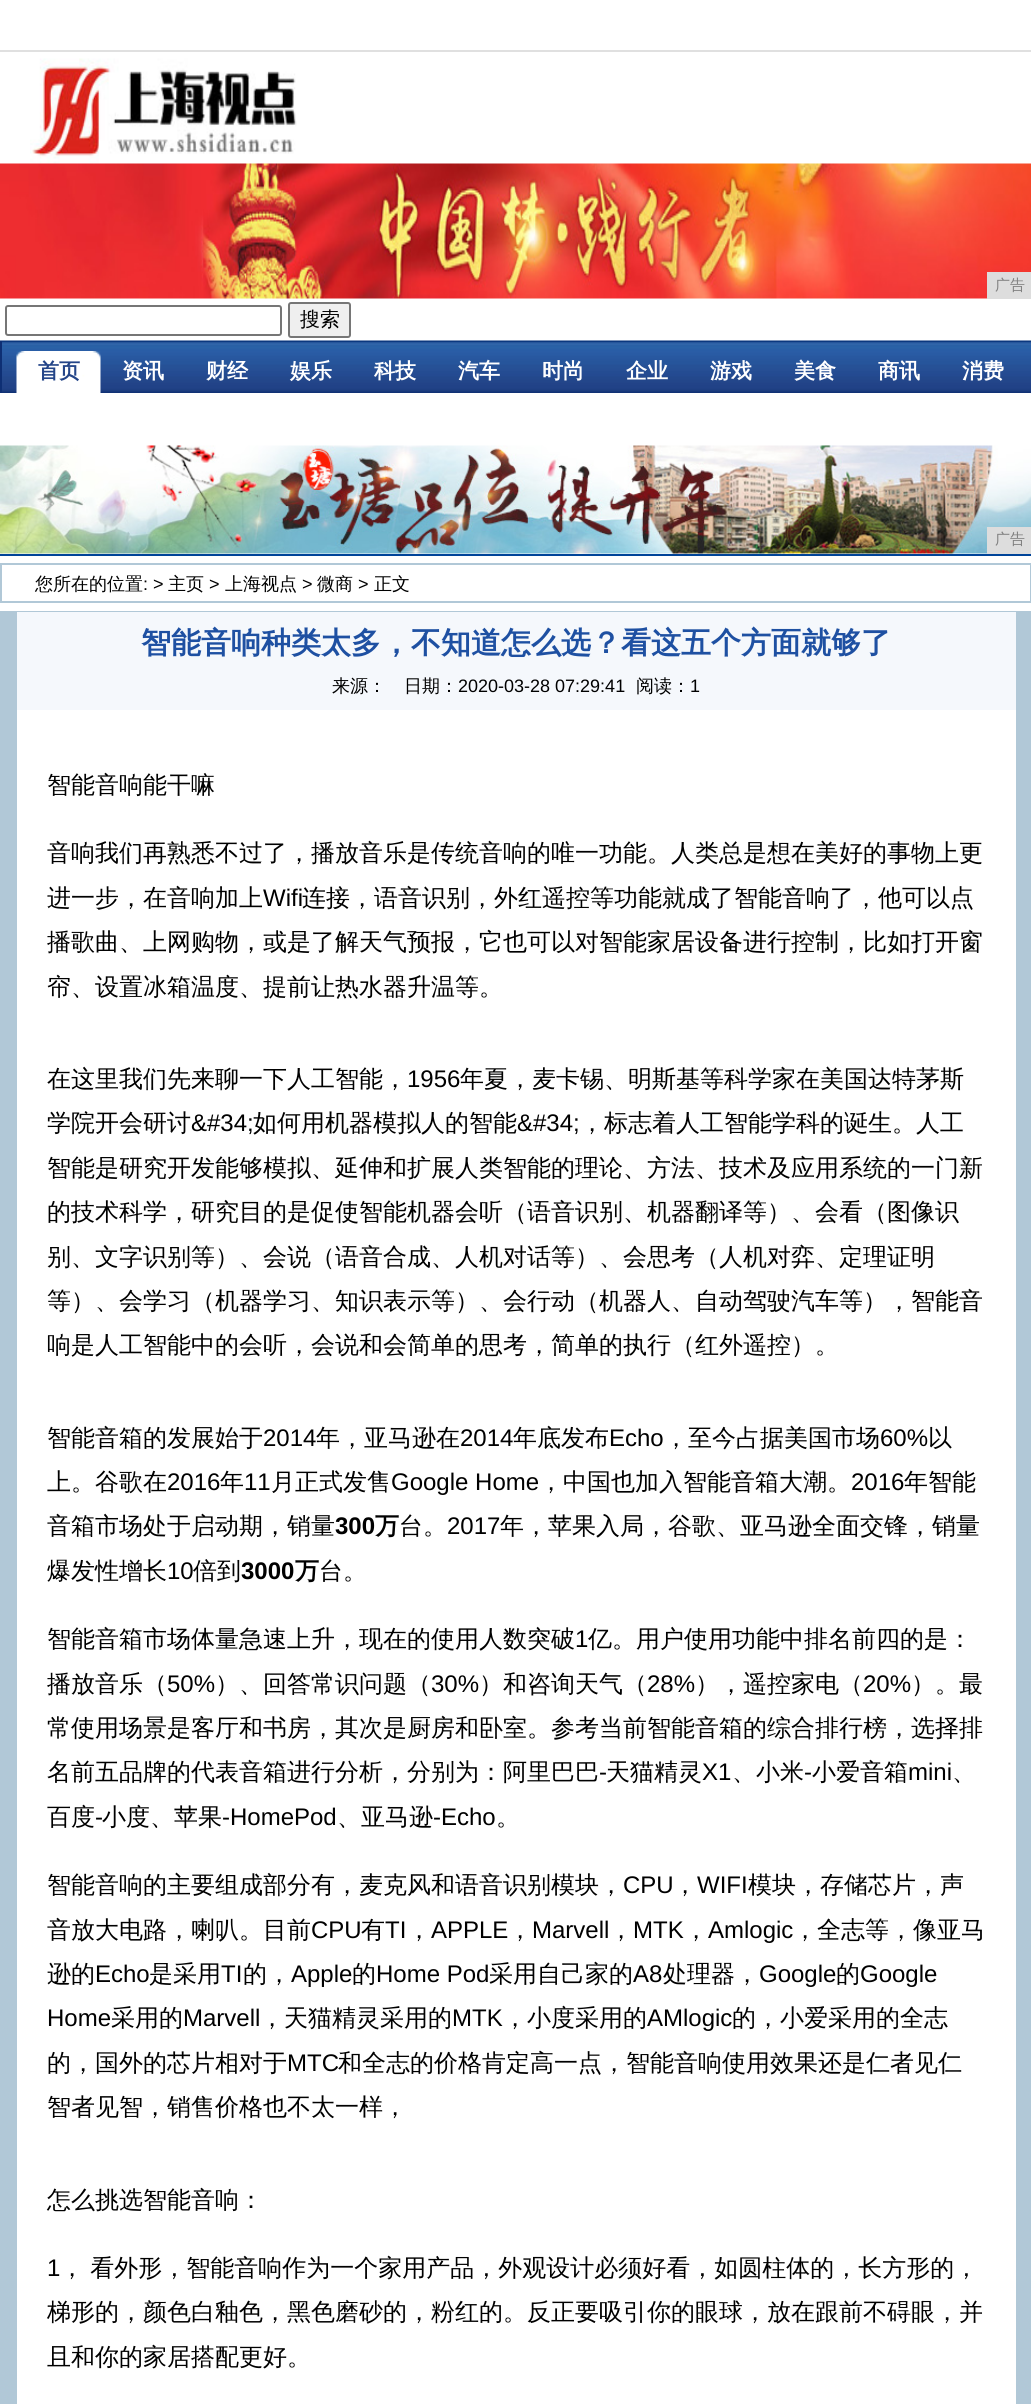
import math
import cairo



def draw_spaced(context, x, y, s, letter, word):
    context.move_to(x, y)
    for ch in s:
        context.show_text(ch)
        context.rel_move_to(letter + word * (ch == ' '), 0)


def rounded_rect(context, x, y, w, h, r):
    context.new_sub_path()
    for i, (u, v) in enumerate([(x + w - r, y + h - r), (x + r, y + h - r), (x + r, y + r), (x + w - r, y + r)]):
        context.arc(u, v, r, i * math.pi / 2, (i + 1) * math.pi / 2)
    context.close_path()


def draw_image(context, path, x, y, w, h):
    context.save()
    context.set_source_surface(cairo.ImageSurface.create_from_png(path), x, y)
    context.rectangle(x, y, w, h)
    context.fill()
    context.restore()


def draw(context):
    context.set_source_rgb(1, 1, 1)
    context.paint()
    context.set_source_rgb(224 / 255, 224 / 255, 224 / 255)
    context.rectangle(0, 50, 1031, 2)
    context.fill()
    draw_image(context, "images/1.png", 30, 58, 267, 106)
    draw_image(context, "images/2.png", 0, 163, 1031, 136)
    context.set_source_rgb(221 / 255, 221 / 255, 221 / 255)
    context.rectangle(987, 272, 44, 27)
    context.fill()
    rounded_rect(context, 6, 306, 275, 29, 2)
    context.set_source_rgb(118 / 255, 118 / 255, 118 / 255)
    context.stroke()
    context.set_source_rgb(239 / 255, 239 / 255, 239 / 255)
    rounded_rect(context, 289, 303, 61, 34, 2)
    context.fill_preserve()
    context.set_source_rgb(118 / 255, 118 / 255, 118 / 255)
    context.stroke()
    draw_image(context, "images/3.png", 0, 340, 1031, 53)
    context.set_source_rgb(14 / 255, 47 / 255, 116 / 255)
    context.rectangle(0, 341, 2, 52)
    context.fill()
    draw_image(context, "images/4.png", 16, 351, 85, 42)
    context.set_source_rgb(0, 68 / 255, 153 / 255)
    context.rectangle(0, 554, 1031, 2)
    context.fill()
    draw_image(context, "images/5.png", 0, 445, 1031, 109)
    context.set_source_rgb(221 / 255, 221 / 255, 221 / 255)
    context.rectangle(987, 527, 44, 27)
    context.fill()
    context.rectangle(1, 564, 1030, 38)
    context.set_source_rgb(177 / 255, 200 / 255, 215 / 255)
    context.stroke()
    context.rectangle(0, 611, 1031, 1793)
    context.fill()
    context.set_source_rgb(1, 1, 1)
    context.rectangle(17, 710, 999, 1694)
    context.fill()
    context.set_source_rgb(245 / 255, 248 / 255, 252 / 255)
    context.rectangle(17, 612, 999, 98)
    context.fill()
    context.select_font_face("WenQuanYi Zen Hei Medium")
    context.set_font_size(15)
    context.set_source_rgb(128 / 255, 128 / 255, 128 / 255)
    context.move_to(995, 290)
    context.show_text("广告")
    context.set_font_size(20)
    context.set_source_rgb(0, 0, 0)
    context.move_to(300, 326)
    context.show_text("搜索")
    context.select_font_face("WenQuanYi Zen Hei", cairo.FontSlant.NORMAL, cairo.FontWeight.BOLD)
    context.set_font_size(21)
    context.set_source_rgb(36 / 255, 69 / 255, 136 / 255)
    context.move_to(38, 378)
    context.show_text("首页")
    context.set_source_rgb(1, 1, 1)
    context.move_to(122, 378)
    context.show_text("资讯")
    context.move_to(206, 378)
    context.show_text("财经")
    context.move_to(290, 378)
    context.show_text("娱乐")
    context.move_to(374, 378)
    context.show_text("科技")
    context.move_to(458, 378)
    context.show_text("汽车")
    context.move_to(542, 378)
    context.show_text("时尚")
    context.move_to(626, 378)
    context.show_text("企业")
    context.move_to(710, 378)
    context.show_text("游戏")
    context.move_to(794, 378)
    context.show_text("美食")
    context.move_to(878, 378)
    context.show_text("商讯")
    context.move_to(962, 378)
    context.show_text("消费")
    context.select_font_face("WenQuanYi Zen Hei Medium")
    context.set_font_size(15)
    context.set_source_rgb(128 / 255, 128 / 255, 128 / 255)
    context.move_to(995, 544)
    context.show_text("广告")
    context.set_font_size(18)
    context.set_source_rgb(0, 0, 0)
    context.move_to(35, 590)
    context.show_text("您所在的位置")
    context.select_font_face("Liberation Sans")
    context.move_to(143, 590)
    context.show_text(": >")
    context.select_font_face("WenQuanYi Zen Hei Medium")
    context.move_to(168, 590)
    context.show_text("主页")
    context.select_font_face("Liberation Sans")
    context.move_to(209, 590)
    context.show_text(">")
    context.select_font_face("WenQuanYi Zen Hei Medium")
    context.move_to(225, 590)
    context.show_text("上海视点")
    context.select_font_face("Liberation Sans")
    context.move_to(302, 590)
    context.show_text(">")
    context.select_font_face("WenQuanYi Zen Hei Medium")
    context.move_to(317, 590)
    context.show_text("微商")
    context.select_font_face("Liberation Sans")
    context.move_to(358, 590)
    context.show_text(">")
    context.select_font_face("WenQuanYi Zen Hei Medium")
    context.move_to(374, 590)
    context.show_text("正文")
    context.select_font_face("WenQuanYi Zen Hei", cairo.FontSlant.NORMAL, cairo.FontWeight.BOLD)
    context.set_font_size(30)
    context.set_source_rgb(30 / 255, 80 / 255, 162 / 255)
    context.move_to(141, 653)
    context.show_text("智能音响种类太多，不知道怎么选？看这五个方面就够了")
    context.select_font_face("WenQuanYi Zen Hei Medium")
    context.set_font_size(18)
    context.set_source_rgb(0, 0, 0)
    context.move_to(332, 692)
    context.show_text("来源：")
    context.move_to(404, 692)
    context.show_text("日期：")
    context.select_font_face("Liberation Sans")
    context.move_to(458, 692)
    context.show_text("2020-03-28 07:29:41")
    context.select_font_face("WenQuanYi Zen Hei Medium")
    context.move_to(636, 692)
    context.show_text("阅读：")
    context.select_font_face("Liberation Sans")
    context.move_to(690, 692)
    context.show_text("1")
    context.select_font_face("WenQuanYi Zen Hei Medium")
    context.set_font_size(24)
    context.move_to(47, 793)
    context.show_text("智能音响能干嘛")
    context.move_to(47, 861)
    context.show_text("音响我们再熟悉不过了，播放音乐是传统音响的唯一功能。人类总是想在美好的事物上更")
    context.move_to(47, 906)
    context.show_text("进一步，在音响加上")
    context.select_font_face("Liberation Sans")
    context.move_to(263, 906)
    context.show_text("Wifi")
    context.select_font_face("WenQuanYi Zen Hei Medium")
    context.move_to(302, 906)
    context.show_text("连接，语音识别，外红遥控等功能就成了智能音响了，他可以点")
    context.move_to(47, 950)
    context.show_text("播歌曲、上网购物，或是了解天气预报，它也可以对智能家居设备进行控制，比如打开窗")
    context.move_to(47, 995)
    context.show_text("帘、设置冰箱温度、提前让热水器升温等。")
    context.move_to(47, 1087)
    context.show_text("在这里我们先来聊一下人工智能，")
    context.select_font_face("Liberation Sans")
    context.move_to(407, 1087)
    context.show_text("1956")
    context.select_font_face("WenQuanYi Zen Hei Medium")
    context.move_to(460, 1087)
    context.show_text("年夏，麦卡锡、明斯基等科学家在美国达特茅斯")
    context.move_to(47, 1131)
    context.show_text("学院开会研讨")
    context.select_font_face("Liberation Sans")
    context.move_to(191, 1131)
    context.show_text("&#34;")
    context.select_font_face("WenQuanYi Zen Hei Medium")
    context.move_to(253, 1131)
    context.show_text("如何用机器模拟人的智能")
    context.select_font_face("Liberation Sans")
    context.move_to(517, 1131)
    context.show_text("&#34;")
    context.select_font_face("WenQuanYi Zen Hei Medium")
    context.move_to(580, 1131)
    context.show_text("，标志着人工智能学科的诞生。人工")
    context.move_to(47, 1176)
    context.show_text("智能是研究开发能够模拟、延伸和扩展人类智能的理论、方法、技术及应用系统的一门新")
    context.move_to(47, 1220)
    context.show_text("的技术科学，研究目的是促使智能机器会听（语音识别、机器翻译等）、会看（图像识")
    context.move_to(47, 1265)
    context.show_text("别、文字识别等）、会说（语音合成、人机对话等）、会思考（人机对弈、定理证明")
    context.move_to(47, 1309)
    context.show_text("等）、会学习（机器学习、知识表示等）、会行动（机器人、自动驾驶汽车等），智能音")
    context.move_to(47, 1353)
    context.show_text("响是人工智能中的会听，会说和会简单的思考，简单的执行（红外遥控）。")
    context.move_to(47, 1446)
    context.show_text("智能音箱的发展始于")
    context.select_font_face("Liberation Sans")
    context.move_to(263, 1446)
    context.show_text("2014")
    context.select_font_face("WenQuanYi Zen Hei Medium")
    context.move_to(316, 1446)
    context.show_text("年，亚马逊在")
    context.select_font_face("Liberation Sans")
    context.move_to(460, 1446)
    context.show_text("2014")
    context.select_font_face("WenQuanYi Zen Hei Medium")
    context.move_to(513, 1446)
    context.show_text("年底发布")
    context.select_font_face("Liberation Sans")
    context.move_to(609, 1446)
    context.show_text("Echo")
    context.select_font_face("WenQuanYi Zen Hei Medium")
    context.move_to(664, 1446)
    context.show_text("，至今占据美国市场")
    context.select_font_face("Liberation Sans")
    context.move_to(880, 1446)
    context.show_text("60%")
    context.select_font_face("WenQuanYi Zen Hei Medium")
    context.move_to(928, 1446)
    context.show_text("以")
    context.move_to(47, 1490)
    context.show_text("上。谷歌在")
    context.select_font_face("Liberation Sans")
    context.move_to(167, 1490)
    context.show_text("2016")
    context.select_font_face("WenQuanYi Zen Hei Medium")
    context.move_to(220, 1490)
    context.show_text("年")
    context.select_font_face("Liberation Sans")
    context.move_to(244, 1490)
    context.show_text("11")
    context.select_font_face("WenQuanYi Zen Hei Medium")
    context.move_to(271, 1490)
    context.show_text("月正式发售")
    context.select_font_face("Liberation Sans")
    context.move_to(391, 1490)
    context.show_text("Google Home")
    context.select_font_face("WenQuanYi Zen Hei Medium")
    context.move_to(539, 1490)
    context.show_text("，中国也加入智能音箱大潮。")
    context.select_font_face("Liberation Sans")
    context.move_to(851, 1490)
    context.show_text("2016")
    context.select_font_face("WenQuanYi Zen Hei Medium")
    context.move_to(904, 1490)
    context.show_text("年智能")
    context.move_to(47, 1534)
    context.show_text("音箱市场处于启动期，销量")
    context.select_font_face("Liberation Sans", cairo.FontSlant.NORMAL, cairo.FontWeight.BOLD)
    context.move_to(335, 1534)
    context.show_text("300")
    context.select_font_face("WenQuanYi Zen Hei", cairo.FontSlant.NORMAL, cairo.FontWeight.BOLD)
    context.move_to(375, 1534)
    context.show_text("万")
    context.select_font_face("WenQuanYi Zen Hei Medium")
    context.move_to(399, 1534)
    context.show_text("台。")
    context.select_font_face("Liberation Sans")
    context.move_to(447, 1534)
    context.show_text("2017")
    context.select_font_face("WenQuanYi Zen Hei Medium")
    context.move_to(500, 1534)
    context.show_text("年，苹果入局，谷歌、亚马逊全面交锋，销量")
    context.move_to(47, 1579)
    context.show_text("爆发性增长")
    context.select_font_face("Liberation Sans")
    context.move_to(167, 1579)
    context.show_text("10")
    context.select_font_face("WenQuanYi Zen Hei Medium")
    context.move_to(193, 1579)
    context.show_text("倍到")
    context.select_font_face("Liberation Sans", cairo.FontSlant.NORMAL, cairo.FontWeight.BOLD)
    context.move_to(241, 1579)
    context.show_text("3000")
    context.select_font_face("WenQuanYi Zen Hei", cairo.FontSlant.NORMAL, cairo.FontWeight.BOLD)
    context.move_to(295, 1579)
    context.show_text("万")
    context.select_font_face("WenQuanYi Zen Hei Medium")
    context.move_to(319, 1579)
    context.show_text("台。")
    context.move_to(47, 1647)
    context.show_text("智能音箱市场体量急速上升，现在的使用人数突破")
    context.select_font_face("Liberation Sans")
    context.move_to(575, 1647)
    context.show_text("1")
    context.select_font_face("WenQuanYi Zen Hei Medium")
    context.move_to(588, 1647)
    context.show_text("亿。用户使用功能中排名前四的是：")
    context.move_to(47, 1692)
    context.show_text("播放音乐（")
    context.select_font_face("Liberation Sans")
    context.move_to(167, 1692)
    context.show_text("50%")
    context.select_font_face("WenQuanYi Zen Hei Medium")
    context.move_to(215, 1692)
    context.show_text("）、回答常识问题（")
    context.select_font_face("Liberation Sans")
    context.move_to(431, 1692)
    context.show_text("30%")
    context.select_font_face("WenQuanYi Zen Hei Medium")
    context.move_to(479, 1692)
    context.show_text("）和咨询天气（")
    context.select_font_face("Liberation Sans")
    context.move_to(647, 1692)
    context.show_text("28%")
    context.select_font_face("WenQuanYi Zen Hei Medium")
    context.move_to(695, 1692)
    context.show_text("），遥控家电（")
    context.select_font_face("Liberation Sans")
    context.move_to(863, 1692)
    context.show_text("20%")
    context.select_font_face("WenQuanYi Zen Hei Medium")
    context.move_to(911, 1692)
    context.show_text("）。最")
    context.move_to(47, 1736)
    context.show_text("常使用场景是客厅和书房，其次是厨房和卧室。参考当前智能音箱的综合排行榜，选择排")
    context.move_to(47, 1780)
    context.show_text("名前五品牌的代表音箱进行分析，分别为：阿里巴巴")
    context.select_font_face("Liberation Sans")
    context.move_to(599, 1780)
    context.show_text("-")
    context.select_font_face("WenQuanYi Zen Hei Medium")
    context.move_to(606, 1780)
    context.show_text("天猫精灵")
    context.select_font_face("Liberation Sans")
    context.move_to(702, 1780)
    context.show_text("X1")
    context.select_font_face("WenQuanYi Zen Hei Medium")
    context.move_to(732, 1780)
    context.show_text("、小米")
    context.select_font_face("Liberation Sans")
    context.move_to(804, 1780)
    context.show_text("-")
    context.select_font_face("WenQuanYi Zen Hei Medium")
    context.move_to(812, 1780)
    context.show_text("小爱音箱")
    context.select_font_face("Liberation Sans")
    context.move_to(908, 1780)
    context.show_text("mini")
    context.select_font_face("WenQuanYi Zen Hei Medium")
    context.move_to(952, 1780)
    context.show_text("、")
    context.move_to(47, 1825)
    context.show_text("百度")
    context.select_font_face("Liberation Sans")
    context.move_to(95, 1825)
    context.show_text("-")
    context.select_font_face("WenQuanYi Zen Hei Medium")
    context.move_to(102, 1825)
    context.show_text("小度、苹果")
    context.select_font_face("Liberation Sans")
    context.move_to(222, 1825)
    context.show_text("-HomePod")
    context.select_font_face("WenQuanYi Zen Hei Medium")
    context.move_to(337, 1825)
    context.show_text("、亚马逊")
    context.select_font_face("Liberation Sans")
    context.move_to(433, 1825)
    context.show_text("-Echo")
    context.select_font_face("WenQuanYi Zen Hei Medium")
    context.move_to(496, 1825)
    context.show_text("。")
    context.move_to(47, 1893)
    context.show_text("智能音响的主要组成部分有，麦克风和语音识别模块，")
    context.select_font_face("Liberation Sans")
    context.move_to(623, 1893)
    context.show_text("CPU")
    context.select_font_face("WenQuanYi Zen Hei Medium")
    context.move_to(673, 1893)
    context.show_text("，")
    context.select_font_face("Liberation Sans")
    context.move_to(697, 1893)
    context.show_text("WIFI")
    context.select_font_face("WenQuanYi Zen Hei Medium")
    context.move_to(748, 1893)
    context.show_text("模块，存储芯片，声")
    context.move_to(47, 1938)
    context.show_text("音放大电路，喇叭。目前")
    context.select_font_face("Liberation Sans")
    context.move_to(311, 1938)
    context.show_text("CPU")
    context.select_font_face("WenQuanYi Zen Hei Medium")
    context.move_to(361, 1938)
    context.show_text("有")
    context.select_font_face("Liberation Sans")
    context.move_to(385, 1938)
    context.show_text("TI")
    context.select_font_face("WenQuanYi Zen Hei Medium")
    context.move_to(407, 1938)
    context.show_text("，")
    context.select_font_face("Liberation Sans")
    context.move_to(431, 1938)
    context.show_text("APPLE")
    context.select_font_face("WenQuanYi Zen Hei Medium")
    context.move_to(508, 1938)
    context.show_text("，")
    context.select_font_face("Liberation Sans")
    context.move_to(532, 1938)
    context.show_text("Marvell")
    context.select_font_face("WenQuanYi Zen Hei Medium")
    context.move_to(609, 1938)
    context.show_text("，")
    context.select_font_face("Liberation Sans")
    context.move_to(633, 1938)
    context.show_text("MTK")
    context.select_font_face("WenQuanYi Zen Hei Medium")
    context.move_to(684, 1938)
    context.show_text("，")
    context.select_font_face("Liberation Sans")
    context.move_to(708, 1938)
    context.show_text("Amlogic")
    context.select_font_face("WenQuanYi Zen Hei Medium")
    context.move_to(793, 1938)
    context.show_text("，全志等，像亚马")
    context.move_to(47, 1982)
    context.show_text("逊的")
    context.select_font_face("Liberation Sans")
    context.move_to(95, 1982)
    context.show_text("Echo")
    context.select_font_face("WenQuanYi Zen Hei Medium")
    context.move_to(149, 1982)
    context.show_text("是采用")
    context.select_font_face("Liberation Sans")
    context.move_to(221, 1982)
    context.show_text("TI")
    context.select_font_face("WenQuanYi Zen Hei Medium")
    context.move_to(243, 1982)
    context.show_text("的，")
    context.select_font_face("Liberation Sans")
    context.move_to(291, 1982)
    context.show_text("Apple")
    context.select_font_face("WenQuanYi Zen Hei Medium")
    context.move_to(352, 1982)
    context.show_text("的")
    context.select_font_face("Liberation Sans")
    context.move_to(376, 1982)
    context.show_text("Home Pod")
    context.select_font_face("WenQuanYi Zen Hei Medium")
    context.move_to(489, 1982)
    context.show_text("采用自己家的")
    context.select_font_face("Liberation Sans")
    context.move_to(633, 1982)
    context.show_text("A8")
    context.select_font_face("WenQuanYi Zen Hei Medium")
    context.move_to(663, 1982)
    context.show_text("处理器，")
    context.select_font_face("Liberation Sans")
    context.move_to(759, 1982)
    context.show_text("Google")
    context.select_font_face("WenQuanYi Zen Hei Medium")
    context.move_to(836, 1982)
    context.show_text("的")
    context.select_font_face("Liberation Sans")
    context.move_to(860, 1982)
    context.show_text("Google")
    context.move_to(47, 2026)
    context.show_text("Home")
    context.select_font_face("WenQuanYi Zen Hei Medium")
    context.move_to(111, 2026)
    context.show_text("采用的")
    context.select_font_face("Liberation Sans")
    context.move_to(183, 2026)
    context.show_text("Marvell")
    context.select_font_face("WenQuanYi Zen Hei Medium")
    context.move_to(260, 2026)
    context.show_text("，天猫精灵采用的")
    context.select_font_face("Liberation Sans")
    context.move_to(452, 2026)
    context.show_text("MTK")
    context.select_font_face("WenQuanYi Zen Hei Medium")
    context.move_to(503, 2026)
    context.show_text("，小度采用的")
    context.select_font_face("Liberation Sans")
    context.move_to(647, 2026)
    context.show_text("AMlogic")
    context.select_font_face("WenQuanYi Zen Hei Medium")
    context.move_to(732, 2026)
    context.show_text("的，小爱采用的全志")
    context.move_to(47, 2071)
    context.show_text("的，国外的芯片相对于")
    context.select_font_face("Liberation Sans")
    context.move_to(287, 2071)
    context.show_text("MTC")
    context.select_font_face("WenQuanYi Zen Hei Medium")
    context.move_to(338, 2071)
    context.show_text("和全志的价格肯定高一点，智能音响使用效果还是仁者见仁")
    context.move_to(47, 2115)
    context.show_text("智者见智，销售价格也不太一样，")
    context.move_to(47, 2208)
    context.show_text("怎么挑选智能音响：")
    context.select_font_face("Liberation Sans")
    context.move_to(47, 2276)
    context.show_text("1")
    context.select_font_face("WenQuanYi Zen Hei Medium")
    draw_spaced(context, 60, 2276, "， 看外形，智能音响作为一个家用产品，外观设计必须好看，如圆柱体的，长方形的，", 0, -1)
    context.move_to(47, 2320)
    context.show_text("梯形的，颜色白釉色，黑色磨砂的，粉红的。反正要吸引你的眼球，放在跟前不碍眼，并")
    context.move_to(47, 2365)
    context.show_text("且和你的家居搭配更好。")


surface = cairo.ImageSurface(cairo.Format.RGB24, 1031, 2404)
context = cairo.Context(surface)
options = cairo.FontOptions()
options.set_hint_metrics(cairo.HintMetrics.OFF)
options.set_hint_style(cairo.HintStyle.NONE)
context.set_font_options(options)
context.set_miter_limit(4)
draw(context)
surface.write_to_png("out.png")
